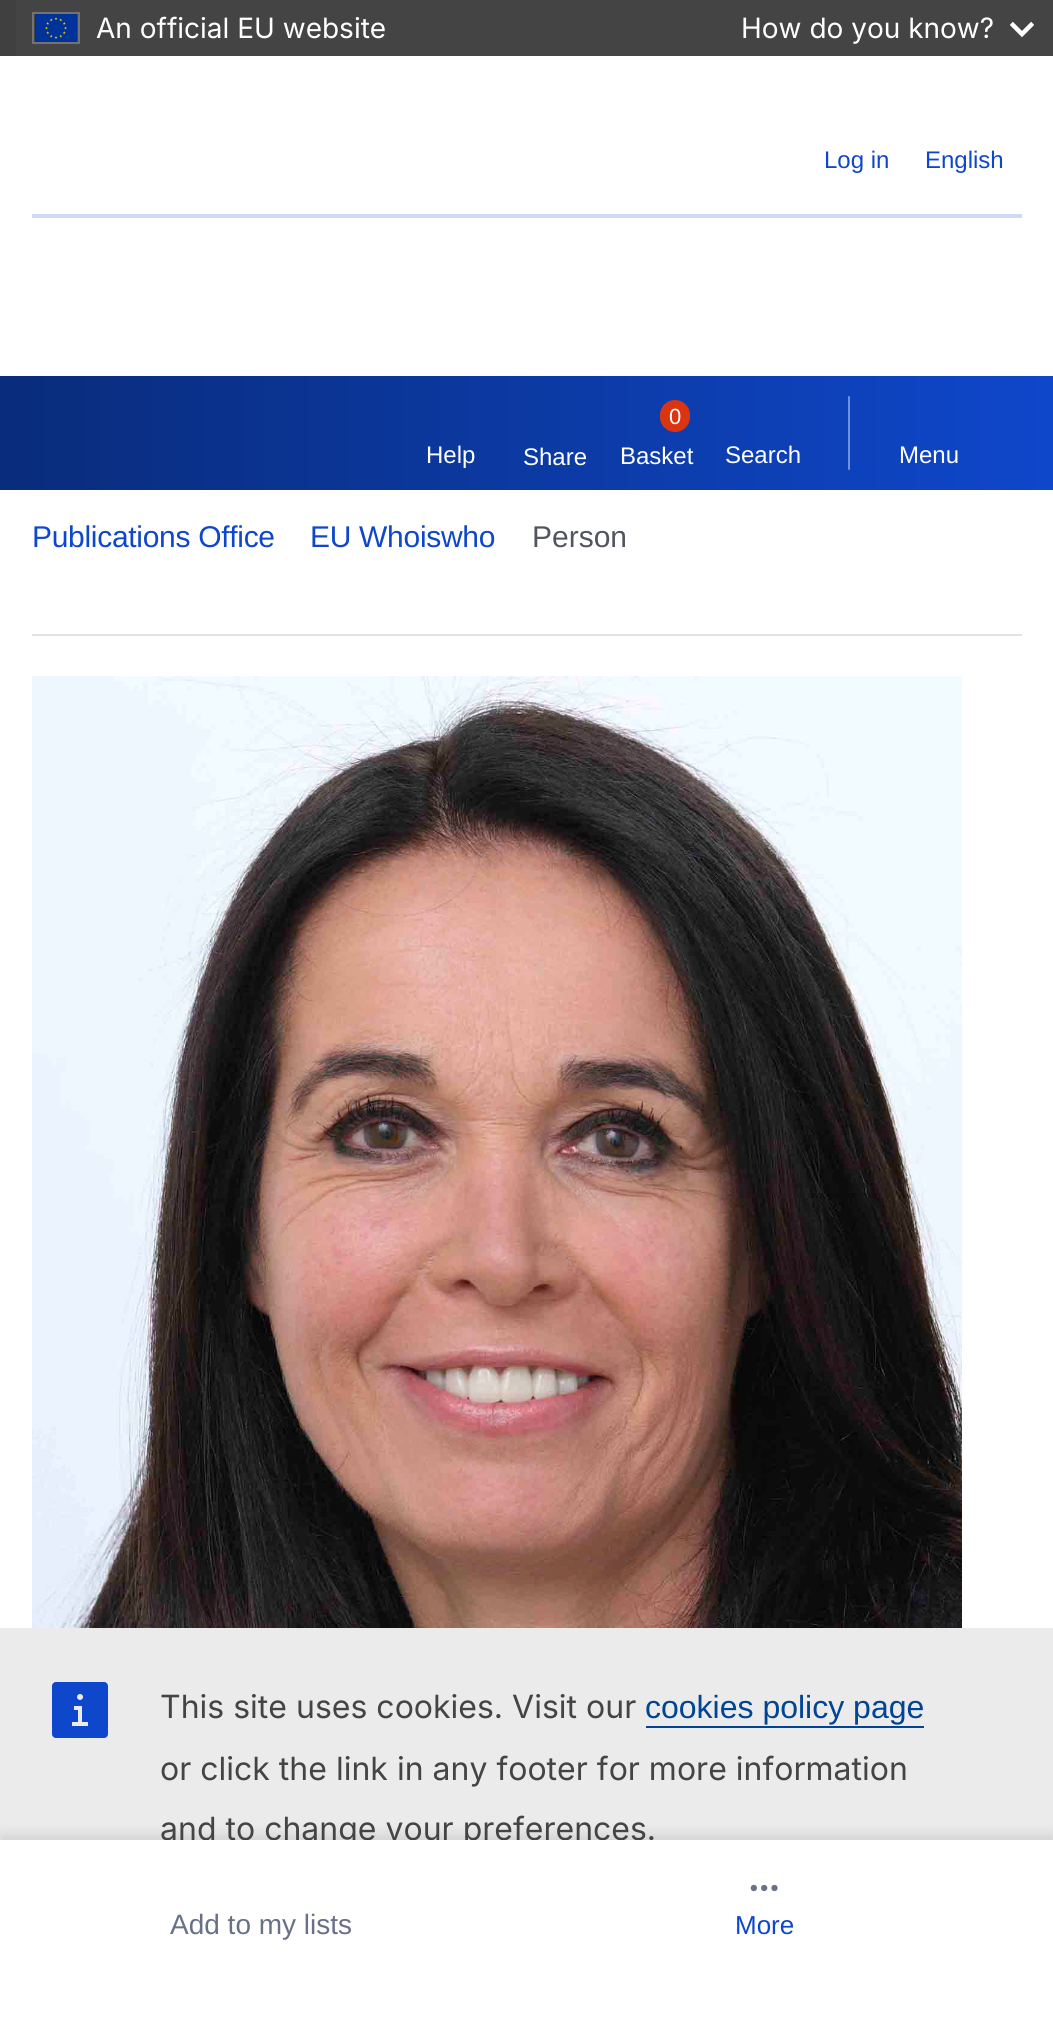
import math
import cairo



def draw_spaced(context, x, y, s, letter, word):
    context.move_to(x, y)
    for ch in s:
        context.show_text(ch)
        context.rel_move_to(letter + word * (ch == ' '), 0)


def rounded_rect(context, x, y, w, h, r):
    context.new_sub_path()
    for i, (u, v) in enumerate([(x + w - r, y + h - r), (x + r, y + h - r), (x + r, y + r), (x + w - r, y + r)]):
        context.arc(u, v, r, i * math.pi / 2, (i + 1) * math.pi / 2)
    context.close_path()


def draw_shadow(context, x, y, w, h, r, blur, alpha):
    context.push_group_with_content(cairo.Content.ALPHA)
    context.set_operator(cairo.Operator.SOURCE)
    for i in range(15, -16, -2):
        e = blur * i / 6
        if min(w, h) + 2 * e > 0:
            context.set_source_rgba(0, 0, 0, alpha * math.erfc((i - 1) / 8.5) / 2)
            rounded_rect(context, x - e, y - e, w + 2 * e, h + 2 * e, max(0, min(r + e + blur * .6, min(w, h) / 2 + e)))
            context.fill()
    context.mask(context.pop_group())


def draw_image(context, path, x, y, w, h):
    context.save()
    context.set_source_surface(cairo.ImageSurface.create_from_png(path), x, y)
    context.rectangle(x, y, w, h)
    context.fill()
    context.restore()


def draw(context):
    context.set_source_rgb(1, 1, 1)
    context.paint()
    context.set_source_rgb(64 / 255, 64 / 255, 64 / 255)
    context.rectangle(0, 0, 16, 56)
    context.fill()
    context.set_source_rgb(68 / 255, 68 / 255, 68 / 255)
    context.rectangle(16, 0, 1037, 56)
    context.fill()
    context.rectangle(33, 13, 46, 30)
    context.set_source_rgb(115 / 255, 115 / 255, 115 / 255)
    context.stroke()
    draw_image(context, "images/1.png", 35, 14, 42, 28)
    draw_image(context, "images/2.png", 1010, 21, 24, 17)
    context.set_source_rgb(235 / 255, 235 / 255, 235 / 255)
    context.rectangle(0, 1628, 1053, 212)
    context.fill()
    draw_image(context, "images/3.png", 52, 1682, 56, 56)
    context.set_source_rgb(0, 68 / 255, 148 / 255)
    context.rectangle(646, 1726, 278, 2)
    context.fill()
    context.set_source_rgb(207 / 255, 218 / 255, 245 / 255)
    context.rectangle(32, 214, 990, 4)
    context.fill()
    gradient = cairo.LinearGradient(0, 433, 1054, 433)
    gradient.add_color_stop_rgba(0, 9 / 255, 44 / 255, 123 / 255, 1)
    gradient.add_color_stop_rgba(1, 15 / 255, 71 / 255, 203 / 255, 1)
    context.set_source(gradient)
    context.rectangle(0, 376, 1053, 114)
    context.fill()
    context.set_source_rgb(218 / 255, 53 / 255, 16 / 255)
    rounded_rect(context, 660, 400, 30, 32, 15)
    context.fill()
    context.set_source_rgb(110 / 255, 145 / 255, 224 / 255)
    rounded_rect(context, 848, 396, 2, 74, 1)
    context.fill()
    draw_image(context, "images/4.png", 32, 676, 930, 952)
    context.set_source_rgb(227 / 255, 227 / 255, 227 / 255)
    context.rectangle(32, 634, 990, 2)
    context.fill()
    context.set_source_rgb(0, 0, 0)
    draw_shadow(context, 0, 1834, 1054, 186, 0, 6, 0.1)
    context.select_font_face("Inter")
    context.set_font_size(28)
    context.set_source_rgb(1, 1, 1)
    context.move_to(96, 38)
    context.show_text("An official EU website")
    context.move_to(741, 38)
    context.show_text("How do you know?")
    context.set_font_size(32)
    context.set_source_rgb(68 / 255, 68 / 255, 68 / 255)
    context.move_to(160, 1718)
    context.show_text("This site uses cookies. Visit our")
    context.select_font_face("Liberation Sans")
    context.set_source_rgb(0, 68 / 255, 148 / 255)
    context.move_to(645, 1718)
    context.show_text("cookies policy page")
    context.select_font_face("Inter")
    context.set_source_rgb(68 / 255, 68 / 255, 68 / 255)
    context.move_to(160, 1780)
    context.show_text("or click the link in any footer for more information")
    context.move_to(160, 1840)
    context.show_text("and to change your preferences.")
    context.select_font_face("Liberation Sans")
    context.set_font_size(24)
    context.set_source_rgb(14 / 255, 71 / 255, 203 / 255)
    context.move_to(824, 168)
    context.show_text("Log in")
    context.move_to(925, 168)
    context.show_text("English")
    context.set_source_rgb(1, 1, 1)
    context.move_to(426, 463)
    context.show_text("Help")
    context.move_to(523, 465)
    context.show_text("Share")
    context.set_font_size(22)
    context.move_to(669, 424)
    context.show_text("0")
    context.set_font_size(24)
    context.move_to(620, 464)
    context.show_text("Basket")
    context.move_to(725, 463)
    context.show_text("Search")
    context.move_to(899, 463)
    context.show_text("Menu")
    context.set_font_size(30)
    context.set_source_rgb(14 / 255, 71 / 255, 203 / 255)
    draw_spaced(context, 32, 547, "Publications Office", -0.3, 0)
    draw_spaced(context, 310, 547, "EU Whoiswho", -0.3, 0)
    context.set_source_rgb(81 / 255, 85 / 255, 96 / 255)
    context.move_to(532, 547)
    context.show_text("Person")
    context.set_source_rgb(1, 1, 1)
    context.rectangle(0, 1840, 1053, 185)
    context.fill()
    context.set_font_size(28)
    context.set_source_rgb(105 / 255, 113 / 255, 136 / 255)
    context.move_to(170, 1934)
    context.show_text("Add to my lists")
    draw_image(context, "images/5.png", 750, 1884, 28, 8)
    context.set_font_size(26)
    context.set_source_rgb(14 / 255, 71 / 255, 203 / 255)
    context.move_to(735, 1934)
    context.show_text("More")


surface = cairo.ImageSurface(cairo.Format.RGB24, 1053, 2025)
context = cairo.Context(surface)
options = cairo.FontOptions()
options.set_hint_metrics(cairo.HintMetrics.OFF)
options.set_hint_style(cairo.HintStyle.NONE)
context.set_font_options(options)
context.set_miter_limit(4)
draw(context)
surface.write_to_png("out.png")
